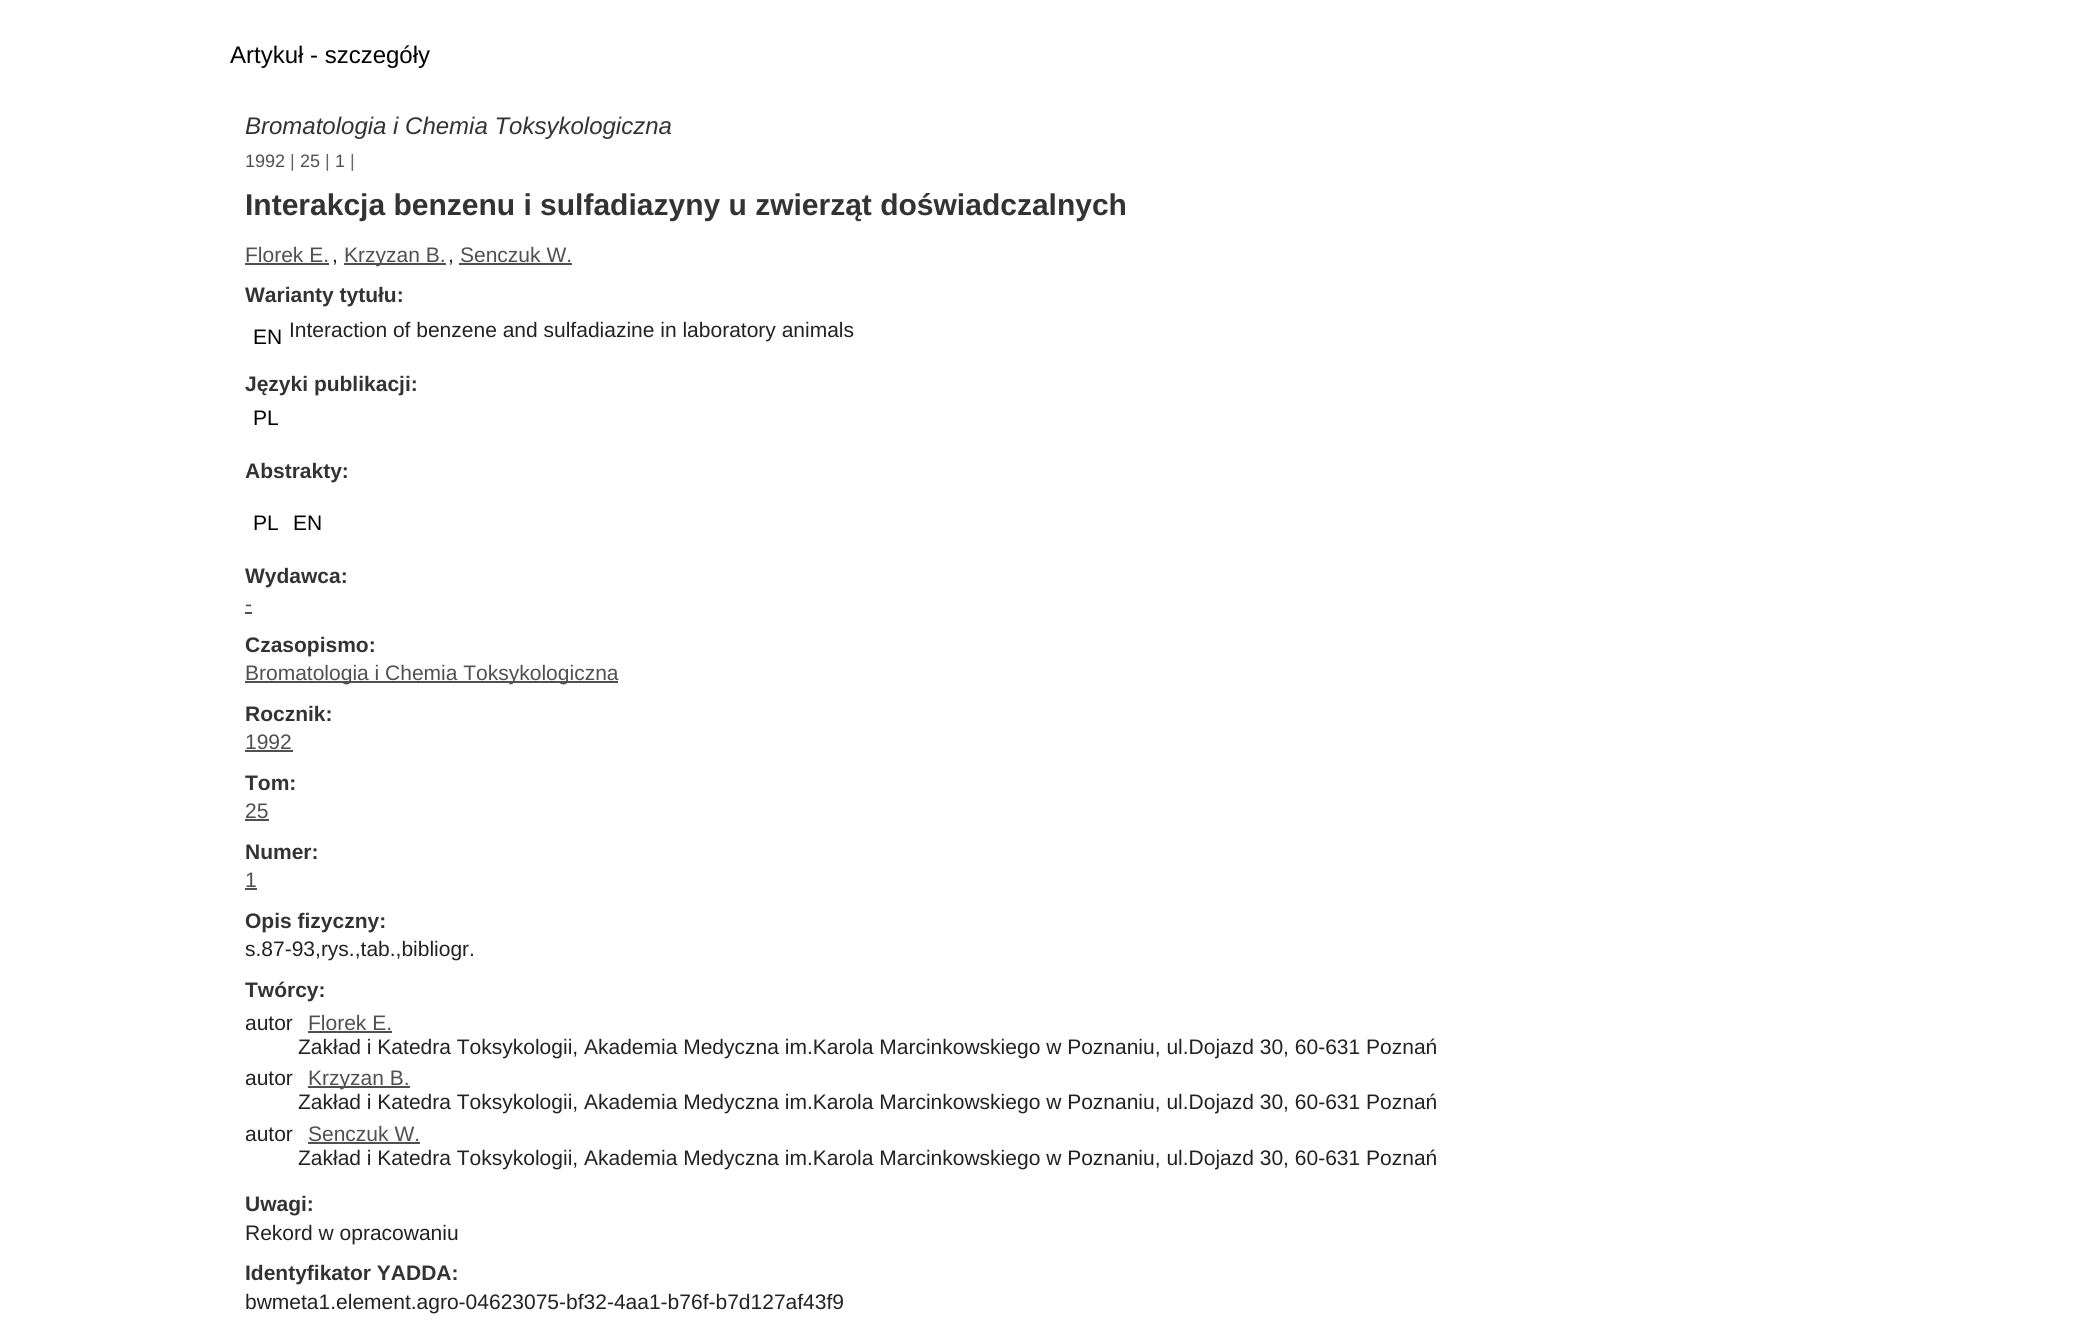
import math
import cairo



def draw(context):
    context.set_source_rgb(1, 1, 1)
    context.paint()
    context.set_source_rgb(81 / 255, 80 / 255, 80 / 255)
    context.rectangle(245, 263, 84, 2)
    context.fill()
    context.rectangle(344, 263, 102, 2)
    context.fill()
    context.rectangle(459, 263, 113, 2)
    context.fill()
    context.rectangle(245, 612, 7, 2)
    context.fill()
    context.rectangle(245, 681, 373, 2)
    context.fill()
    context.rectangle(245, 750, 48, 2)
    context.fill()
    context.rectangle(245, 819, 24, 2)
    context.fill()
    context.rectangle(245, 888, 12, 2)
    context.fill()
    context.rectangle(308, 1031, 84, 2)
    context.fill()
    context.rectangle(308, 1086, 102, 2)
    context.fill()
    context.rectangle(308, 1142, 112, 2)
    context.fill()
    context.select_font_face("Liberation Sans")
    context.set_font_size(24)
    context.set_source_rgb(0, 0, 0)
    context.move_to(230, 63)
    context.show_text("Artykuł - szczegóły")
    context.select_font_face("Liberation Sans", cairo.FontSlant.ITALIC)
    context.set_source_rgb(51 / 255, 51 / 255, 51 / 255)
    context.move_to(245, 134)
    context.show_text("Bromatologia i Chemia Toksykologiczna")
    context.select_font_face("Liberation Sans")
    context.set_font_size(18)
    context.set_source_rgb(81 / 255, 80 / 255, 80 / 255)
    context.move_to(245, 167)
    context.show_text("1992")
    context.set_source_rgb(102 / 255, 102 / 255, 102 / 255)
    context.move_to(290, 167)
    context.show_text("|")
    context.set_source_rgb(81 / 255, 80 / 255, 80 / 255)
    context.move_to(300, 167)
    context.show_text("25")
    context.set_source_rgb(102 / 255, 102 / 255, 102 / 255)
    context.move_to(325, 167)
    context.show_text("|")
    context.set_source_rgb(81 / 255, 80 / 255, 80 / 255)
    context.move_to(335, 167)
    context.show_text("1")
    context.set_source_rgb(102 / 255, 102 / 255, 102 / 255)
    context.move_to(350, 167)
    context.show_text("|")
    context.select_font_face("Liberation Sans", cairo.FontSlant.NORMAL, cairo.FontWeight.BOLD)
    context.set_font_size(30)
    context.set_source_rgb(51 / 255, 51 / 255, 51 / 255)
    context.move_to(245, 215)
    context.show_text("Interakcja benzenu i sulfadiazyny u zwierząt doświadczalnych")
    context.select_font_face("Liberation Sans")
    context.set_font_size(21)
    context.set_source_rgb(81 / 255, 80 / 255, 80 / 255)
    context.move_to(245, 262)
    context.show_text("Florek E.")
    context.set_source_rgb(34 / 255, 34 / 255, 34 / 255)
    context.move_to(332, 262)
    context.show_text(",")
    context.set_source_rgb(81 / 255, 80 / 255, 80 / 255)
    context.move_to(344, 262)
    context.show_text("Krzyzan B.")
    context.set_source_rgb(34 / 255, 34 / 255, 34 / 255)
    context.move_to(448, 262)
    context.show_text(",")
    context.set_source_rgb(81 / 255, 80 / 255, 80 / 255)
    context.move_to(460, 262)
    context.show_text("Senczuk W.")
    context.select_font_face("Liberation Sans", cairo.FontSlant.NORMAL, cairo.FontWeight.BOLD)
    context.set_source_rgb(51 / 255, 51 / 255, 51 / 255)
    context.move_to(245, 302)
    context.show_text("Warianty tytułu:")
    context.select_font_face("Liberation Sans")
    context.set_source_rgb(0, 0, 0)
    context.move_to(253, 344)
    context.show_text("EN")
    context.set_source_rgb(34 / 255, 34 / 255, 34 / 255)
    context.move_to(289, 337)
    context.show_text("Interaction of benzene and sulfadiazine in laboratory animals")
    context.select_font_face("Liberation Sans", cairo.FontSlant.NORMAL, cairo.FontWeight.BOLD)
    context.set_source_rgb(51 / 255, 51 / 255, 51 / 255)
    context.move_to(245, 391)
    context.show_text("Języki publikacji:")
    context.select_font_face("Liberation Sans")
    context.set_source_rgb(0, 0, 0)
    context.move_to(253, 425)
    context.show_text("PL")
    context.select_font_face("Liberation Sans", cairo.FontSlant.NORMAL, cairo.FontWeight.BOLD)
    context.set_source_rgb(51 / 255, 51 / 255, 51 / 255)
    context.move_to(245, 478)
    context.show_text("Abstrakty:")
    context.select_font_face("Liberation Sans")
    context.set_source_rgb(0, 0, 0)
    context.move_to(253, 530)
    context.show_text("PL")
    context.move_to(293, 530)
    context.show_text("EN")
    context.select_font_face("Liberation Sans", cairo.FontSlant.NORMAL, cairo.FontWeight.BOLD)
    context.set_source_rgb(51 / 255, 51 / 255, 51 / 255)
    context.move_to(245, 583)
    context.show_text("Wydawca:")
    context.select_font_face("Liberation Sans")
    context.set_source_rgb(81 / 255, 80 / 255, 80 / 255)
    context.move_to(245, 611)
    context.show_text("-")
    context.select_font_face("Liberation Sans", cairo.FontSlant.NORMAL, cairo.FontWeight.BOLD)
    context.set_source_rgb(51 / 255, 51 / 255, 51 / 255)
    context.move_to(245, 652)
    context.show_text("Czasopismo:")
    context.select_font_face("Liberation Sans")
    context.set_source_rgb(81 / 255, 80 / 255, 80 / 255)
    context.move_to(245, 680)
    context.show_text("Bromatologia i Chemia Toksykologiczna")
    context.select_font_face("Liberation Sans", cairo.FontSlant.NORMAL, cairo.FontWeight.BOLD)
    context.set_source_rgb(51 / 255, 51 / 255, 51 / 255)
    context.move_to(245, 721)
    context.show_text("Rocznik:")
    context.select_font_face("Liberation Sans")
    context.set_source_rgb(81 / 255, 80 / 255, 80 / 255)
    context.move_to(245, 749)
    context.show_text("1992")
    context.select_font_face("Liberation Sans", cairo.FontSlant.NORMAL, cairo.FontWeight.BOLD)
    context.set_source_rgb(51 / 255, 51 / 255, 51 / 255)
    context.move_to(245, 790)
    context.show_text("Tom:")
    context.select_font_face("Liberation Sans")
    context.set_source_rgb(81 / 255, 80 / 255, 80 / 255)
    context.move_to(245, 818)
    context.show_text("25")
    context.select_font_face("Liberation Sans", cairo.FontSlant.NORMAL, cairo.FontWeight.BOLD)
    context.set_source_rgb(51 / 255, 51 / 255, 51 / 255)
    context.move_to(245, 859)
    context.show_text("Numer:")
    context.select_font_face("Liberation Sans")
    context.set_source_rgb(81 / 255, 80 / 255, 80 / 255)
    context.move_to(245, 887)
    context.show_text("1")
    context.select_font_face("Liberation Sans", cairo.FontSlant.NORMAL, cairo.FontWeight.BOLD)
    context.set_source_rgb(51 / 255, 51 / 255, 51 / 255)
    context.move_to(245, 928)
    context.show_text("Opis fizyczny:")
    context.select_font_face("Liberation Sans")
    context.set_source_rgb(34 / 255, 34 / 255, 34 / 255)
    context.move_to(245, 956)
    context.show_text("s.87-93,rys.,tab.,bibliogr.")
    context.select_font_face("Liberation Sans", cairo.FontSlant.NORMAL, cairo.FontWeight.BOLD)
    context.set_source_rgb(51 / 255, 51 / 255, 51 / 255)
    context.move_to(245, 997)
    context.show_text("Twórcy:")
    context.select_font_face("Liberation Sans")
    context.set_source_rgb(34 / 255, 34 / 255, 34 / 255)
    context.move_to(245, 1030)
    context.show_text("autor")
    context.set_source_rgb(81 / 255, 80 / 255, 80 / 255)
    context.move_to(308, 1030)
    context.show_text("Florek E.")
    context.set_source_rgb(34 / 255, 34 / 255, 34 / 255)
    context.move_to(298, 1054)
    context.show_text("Zakład i Katedra Toksykologii, Akademia Medyczna im.Karola Marcinkowskiego w Poznaniu, ul.Dojazd 30, 60-631 Poznań")
    context.move_to(245, 1085)
    context.show_text("autor")
    context.set_source_rgb(81 / 255, 80 / 255, 80 / 255)
    context.move_to(308, 1085)
    context.show_text("Krzyzan B.")
    context.set_source_rgb(34 / 255, 34 / 255, 34 / 255)
    context.move_to(298, 1109)
    context.show_text("Zakład i Katedra Toksykologii, Akademia Medyczna im.Karola Marcinkowskiego w Poznaniu, ul.Dojazd 30, 60-631 Poznań")
    context.move_to(245, 1141)
    context.show_text("autor")
    context.set_source_rgb(81 / 255, 80 / 255, 80 / 255)
    context.move_to(308, 1141)
    context.show_text("Senczuk W.")
    context.set_source_rgb(34 / 255, 34 / 255, 34 / 255)
    context.move_to(298, 1165)
    context.show_text("Zakład i Katedra Toksykologii, Akademia Medyczna im.Karola Marcinkowskiego w Poznaniu, ul.Dojazd 30, 60-631 Poznań")
    context.select_font_face("Liberation Sans", cairo.FontSlant.NORMAL, cairo.FontWeight.BOLD)
    context.set_source_rgb(51 / 255, 51 / 255, 51 / 255)
    context.move_to(245, 1211)
    context.show_text("Uwagi:")
    context.select_font_face("Liberation Sans")
    context.set_source_rgb(34 / 255, 34 / 255, 34 / 255)
    context.move_to(245, 1240)
    context.show_text("Rekord w opracowaniu")
    context.select_font_face("Liberation Sans", cairo.FontSlant.NORMAL, cairo.FontWeight.BOLD)
    context.set_source_rgb(51 / 255, 51 / 255, 51 / 255)
    context.move_to(245, 1280)
    context.show_text("Identyfikator YADDA:")
    context.select_font_face("Liberation Sans")
    context.set_source_rgb(34 / 255, 34 / 255, 34 / 255)
    context.move_to(245, 1309)
    context.show_text("bwmeta1.element.agro-04623075-bf32-4aa1-b76f-b7d127af43f9")


surface = cairo.ImageSurface(cairo.Format.RGB24, 2075, 1328)
context = cairo.Context(surface)
options = cairo.FontOptions()
options.set_hint_metrics(cairo.HintMetrics.OFF)
options.set_hint_style(cairo.HintStyle.NONE)
context.set_font_options(options)
context.set_miter_limit(4)
draw(context)
surface.write_to_png("out.png")
